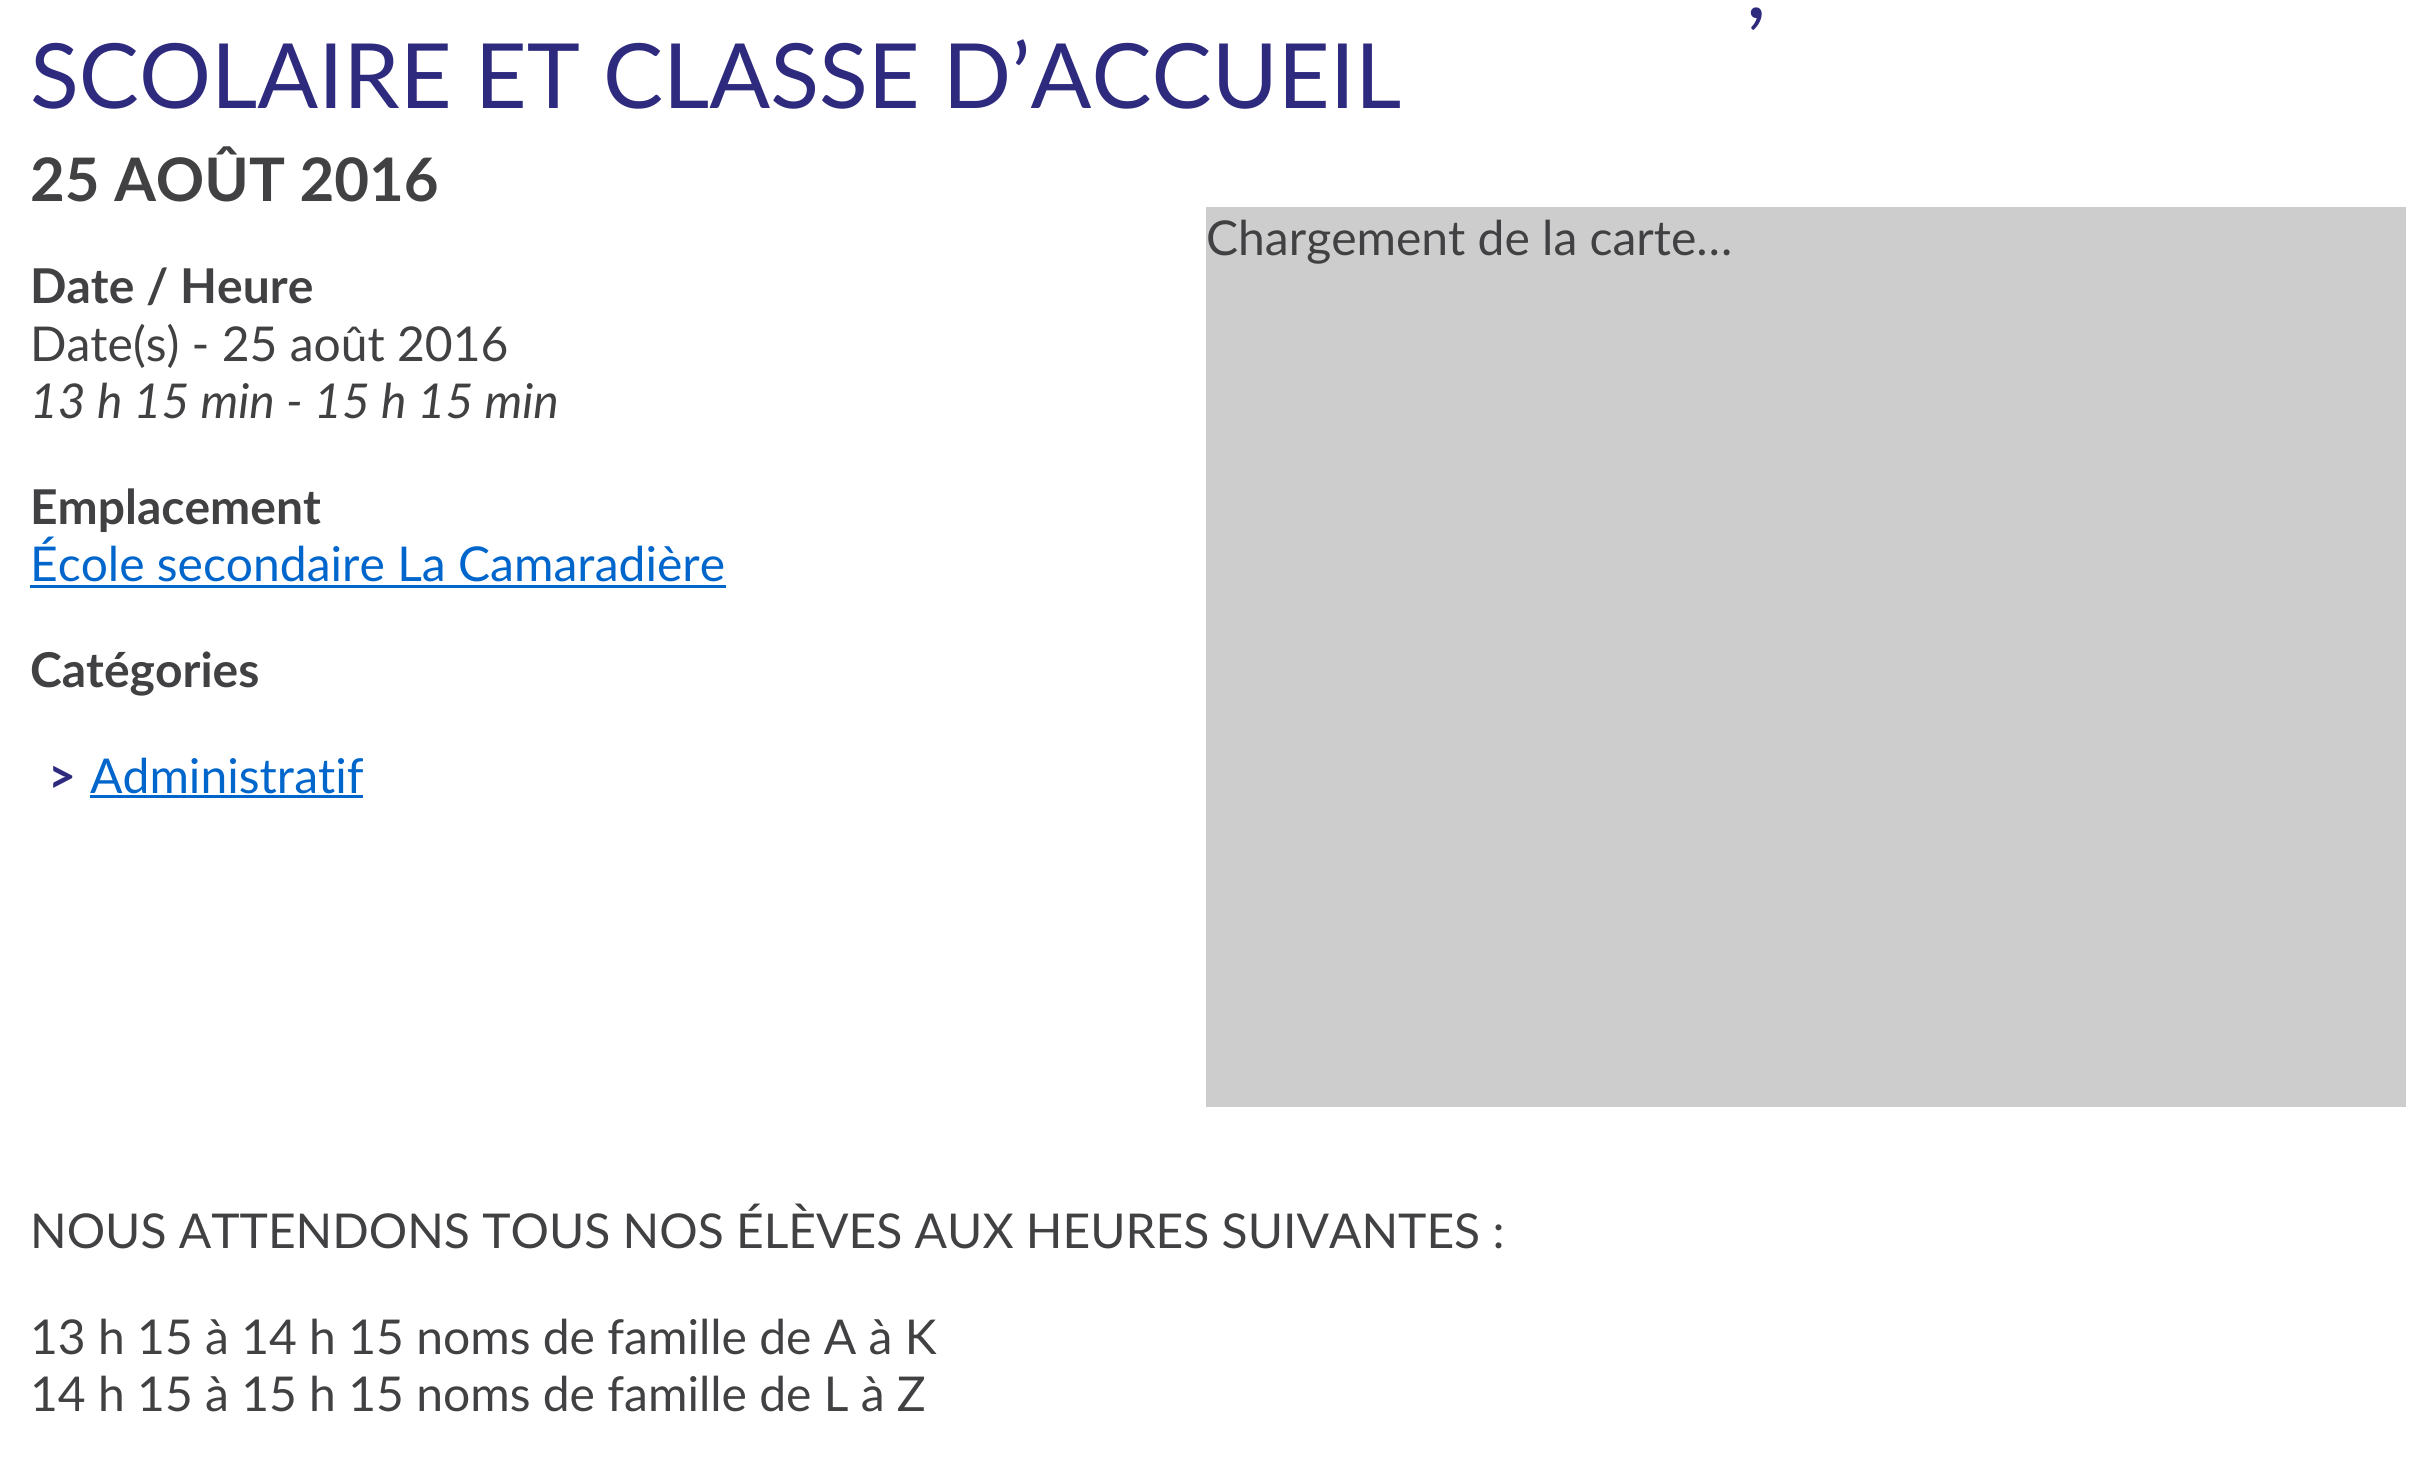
import math
import cairo



def draw(context):
    context.set_source_rgb(1, 1, 1)
    context.paint()
    context.set_source_rgb(205 / 255, 205 / 255, 205 / 255)
    context.rectangle(1206, 207, 1200, 900)
    context.fill()
    context.set_source_rgb(0, 102 / 255, 204 / 255)
    context.rectangle(30, 585, 696, 3)
    context.fill()
    context.rectangle(90, 795, 273, 3)
    context.fill()
    context.select_font_face("Lato")
    context.set_font_size(90)
    context.set_source_rgb(46 / 255, 42 / 255, 126 / 255)
    context.move_to(1746, 18)
    context.show_text(",")
    context.move_to(30, 108)
    context.show_text("SCOLAIRE ET CLASSE D’ACCUEIL")
    context.select_font_face("Lato", cairo.FontSlant.NORMAL, cairo.FontWeight.BOLD)
    context.set_font_size(60)
    context.set_source_rgb(65 / 255, 64 / 255, 66 / 255)
    context.move_to(30, 201)
    context.show_text("25 AOÛT 2016")
    context.select_font_face("Lato")
    context.set_font_size(48)
    context.move_to(1206, 255)
    context.show_text("Chargement de la carte…")
    context.select_font_face("Lato", cairo.FontSlant.NORMAL, cairo.FontWeight.BOLD)
    context.move_to(30, 303)
    context.show_text("Date / Heure")
    context.select_font_face("Lato")
    context.move_to(30, 361)
    context.show_text("Date(s) - 25 août 2016")
    context.select_font_face("Lato", cairo.FontSlant.ITALIC)
    context.move_to(30, 418)
    context.show_text("13 h 15 min - 15 h 15 min")
    context.select_font_face("Lato", cairo.FontSlant.NORMAL, cairo.FontWeight.BOLD)
    context.move_to(30, 524)
    context.show_text("Emplacement")
    context.select_font_face("Lato")
    context.set_source_rgb(0, 102 / 255, 204 / 255)
    context.move_to(30, 581)
    context.show_text("École secondaire La Camaradière")
    context.select_font_face("Lato", cairo.FontSlant.NORMAL, cairo.FontWeight.BOLD)
    context.set_source_rgb(65 / 255, 64 / 255, 66 / 255)
    context.move_to(30, 687)
    context.show_text("Catégories")
    context.set_source_rgb(46 / 255, 42 / 255, 126 / 255)
    context.move_to(48, 793)
    context.show_text(">")
    context.select_font_face("Lato")
    context.set_source_rgb(0, 102 / 255, 204 / 255)
    context.move_to(90, 793)
    context.show_text("Administratif")
    context.set_source_rgb(65 / 255, 64 / 255, 66 / 255)
    context.move_to(30, 1248)
    context.show_text("NOUS ATTENDONS TOUS NOS ÉLÈVES AUX HEURES SUIVANTES :")
    context.move_to(30, 1354)
    context.show_text("13 h 15 à 14 h 15 noms de famille de A à K")
    context.move_to(30, 1411)
    context.show_text("14 h 15 à 15 h 15 noms de famille de L à Z")


surface = cairo.ImageSurface(cairo.Format.RGB24, 2434, 1482)
context = cairo.Context(surface)
options = cairo.FontOptions()
options.set_hint_metrics(cairo.HintMetrics.OFF)
options.set_hint_style(cairo.HintStyle.NONE)
context.set_font_options(options)
context.set_miter_limit(4)
draw(context)
surface.write_to_png("out.png")
